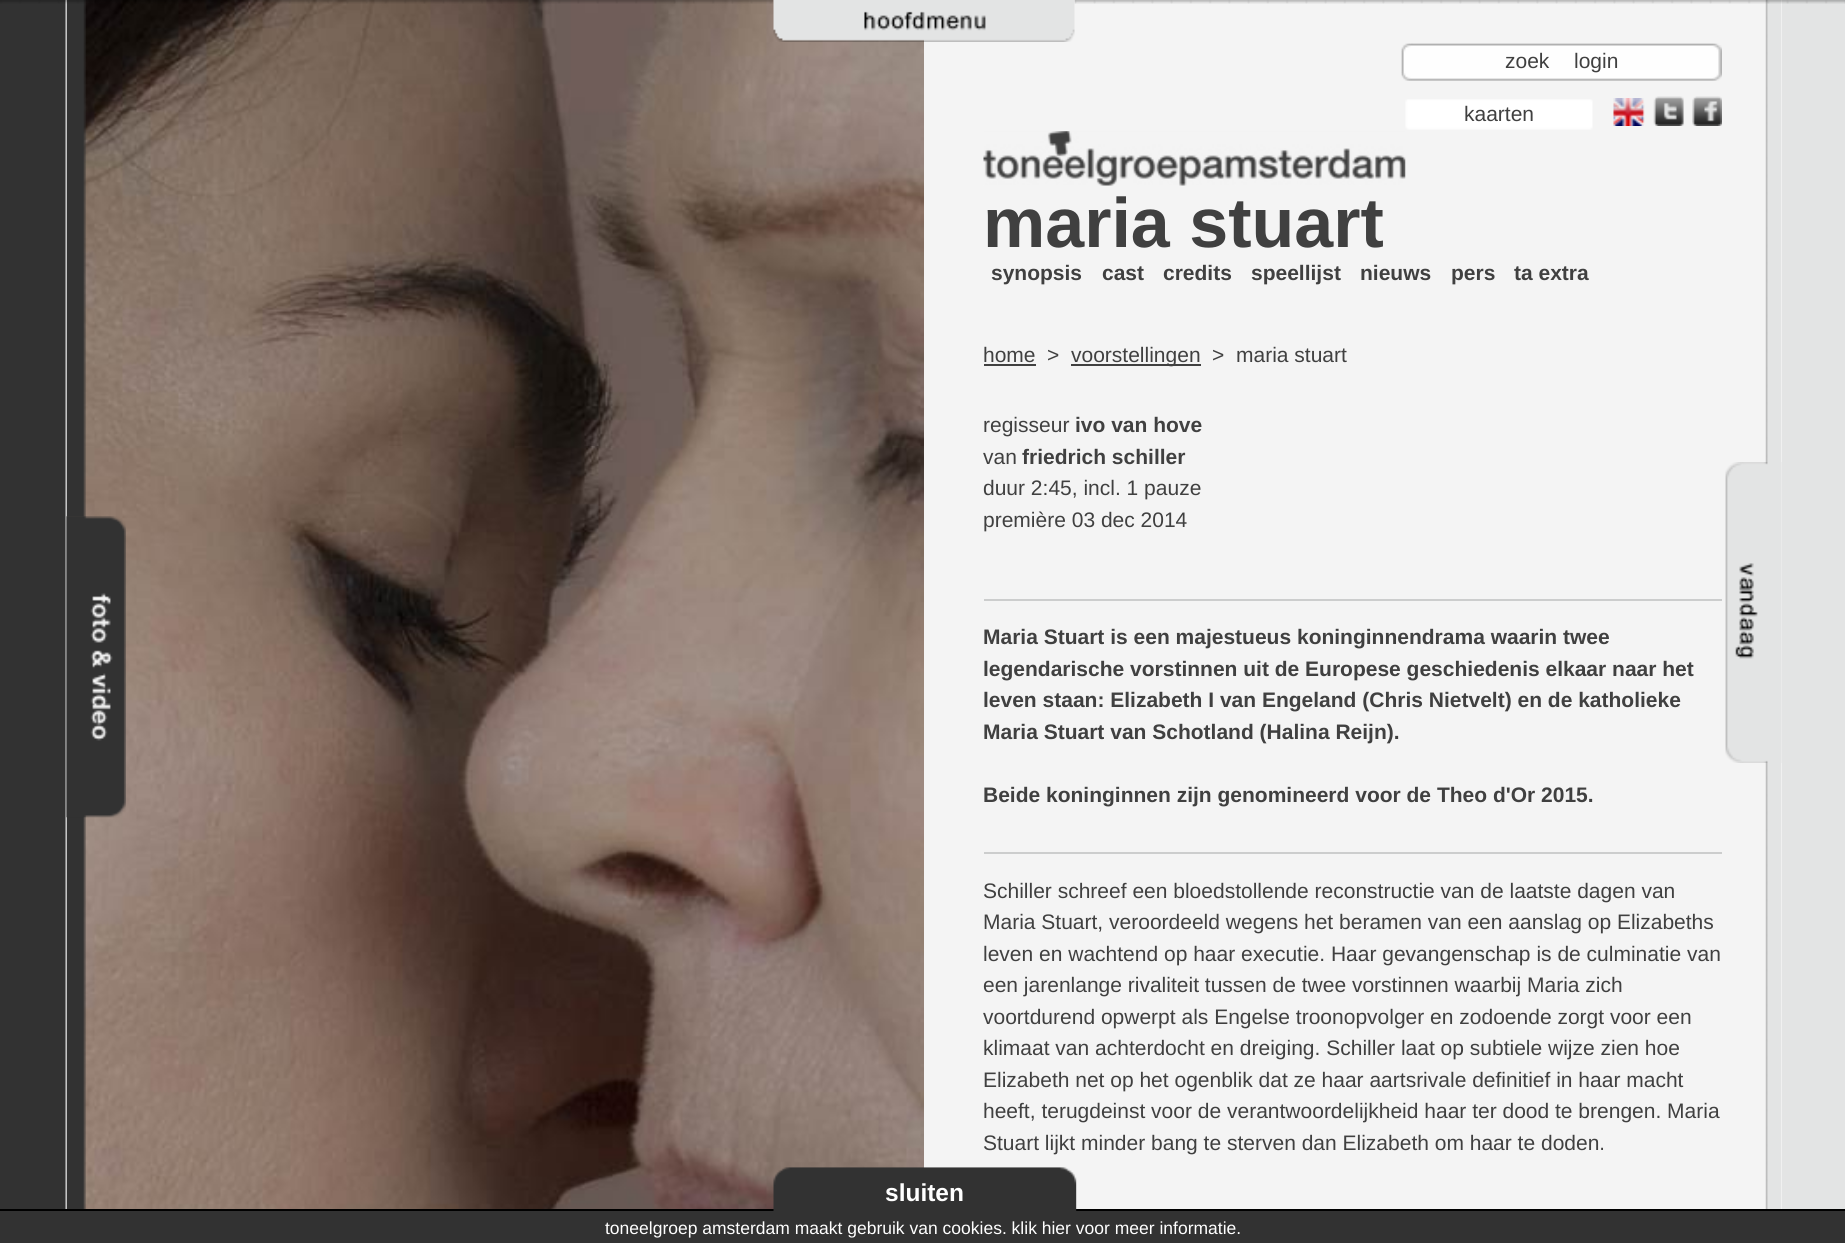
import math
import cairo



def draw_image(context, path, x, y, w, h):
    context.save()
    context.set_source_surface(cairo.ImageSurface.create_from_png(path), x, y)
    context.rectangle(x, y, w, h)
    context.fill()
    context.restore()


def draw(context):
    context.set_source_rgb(50 / 255, 50 / 255, 50 / 255)
    context.paint()
    draw_image(context, "images/1.png", 65, 0, 1780, 1209)
    draw_image(context, "images/8.png", 67, 0, 857, 1209)
    draw_image(context, "images/5.png", 66, 0, 20, 517)
    draw_image(context, "images/2.png", 0, 0, 774, 4)
    context.set_source_rgb(244 / 255, 244 / 255, 244 / 255)
    context.rectangle(1780, 0, 2, 1209)
    context.fill()
    draw_image(context, "images/16.png", 1765, 0, 17, 462)
    draw_image(context, "images/4.png", 1074, 0, 771, 4)
    draw_image(context, "images/3.png", 773, 0, 302, 42)
    draw_image(context, "images/6.png", 66, 516, 20, 693)
    draw_image(context, "images/7.png", 66, 516, 60, 302)
    draw_image(context, "images/9.png", 1401, 43, 321, 38)
    draw_image(context, "images/10.png", 1401, 43, 321, 38)
    draw_image(context, "images/11.png", 1405, 99, 188, 31)
    draw_image(context, "images/12.png", 1613, 98, 32, 28)
    draw_image(context, "images/13.png", 1653, 96, 31, 30)
    draw_image(context, "images/14.png", 1692, 96, 30, 30)
    draw_image(context, "images/15.png", 983, 131, 423, 55)
    context.set_source_rgb(64 / 255, 64 / 255, 64 / 255)
    context.rectangle(984, 364, 52, 2)
    context.fill()
    context.rectangle(1071, 364, 130, 2)
    context.fill()
    context.set_source_rgb(204 / 255, 205 / 255, 205 / 255)
    context.rectangle(984, 599, 738, 2)
    context.fill()
    context.rectangle(984, 852, 738, 2)
    context.fill()
    draw_image(context, "images/18.png", 1765, 462, 17, 747)
    draw_image(context, "images/17.png", 1725, 462, 57, 301)
    context.set_source_rgb(0, 0, 0)
    context.rectangle(0, 1209, 1845, 2)
    context.fill()
    draw_image(context, "images/19.png", 773, 1167, 304, 44)
    context.select_font_face("Liberation Sans")
    context.set_font_size(21)
    context.set_source_rgb(64 / 255, 64 / 255, 64 / 255)
    context.move_to(1505, 68)
    context.show_text("zoek")
    context.move_to(1574, 68)
    context.show_text("login")
    context.move_to(1464, 121)
    context.show_text("kaarten")
    context.select_font_face("Liberation Sans", cairo.FontSlant.NORMAL, cairo.FontWeight.BOLD)
    context.set_font_size(70)
    context.move_to(983, 247)
    context.show_text("maria stuart")
    context.set_font_size(21)
    context.move_to(991, 280)
    context.show_text("synopsis")
    context.move_to(1102, 280)
    context.show_text("cast")
    context.move_to(1163, 280)
    context.show_text("credits")
    context.move_to(1251, 280)
    context.show_text("speellijst")
    context.move_to(1360, 280)
    context.show_text("nieuws")
    context.move_to(1451, 280)
    context.show_text("pers")
    context.move_to(1514, 280)
    context.show_text("ta extra")
    context.select_font_face("Liberation Sans")
    context.move_to(983, 362)
    context.show_text("home")
    context.move_to(1047, 362)
    context.show_text(">")
    context.move_to(1071, 362)
    context.show_text("voorstellingen")
    context.move_to(1212, 362)
    context.show_text(">")
    context.move_to(1236, 362)
    context.show_text("maria stuart")
    context.move_to(983, 432)
    context.show_text("regisseur")
    context.select_font_face("Liberation Sans", cairo.FontSlant.NORMAL, cairo.FontWeight.BOLD)
    context.move_to(1075, 432)
    context.show_text("ivo van hove")
    context.select_font_face("Liberation Sans")
    context.move_to(983, 464)
    context.show_text("van")
    context.select_font_face("Liberation Sans", cairo.FontSlant.NORMAL, cairo.FontWeight.BOLD)
    context.move_to(1022, 464)
    context.show_text("friedrich schiller")
    context.select_font_face("Liberation Sans")
    context.move_to(983, 495)
    context.show_text("duur 2:45, incl. 1 pauze")
    context.move_to(983, 527)
    context.show_text("première 03 dec 2014")
    context.select_font_face("Liberation Sans", cairo.FontSlant.NORMAL, cairo.FontWeight.BOLD)
    context.move_to(983, 644)
    context.show_text("Maria Stuart is een majestueus koninginnendrama waarin twee")
    context.move_to(983, 676)
    context.show_text("legendarische vorstinnen uit de Europese geschiedenis elkaar naar het")
    context.move_to(983, 707)
    context.show_text("leven staan: Elizabeth I van Engeland (Chris Nietvelt) en de katholieke")
    context.move_to(983, 739)
    context.show_text("Maria Stuart van Schotland (Halina Reijn).")
    context.move_to(983, 802)
    context.show_text("Beide koninginnen zijn genomineerd voor de Theo d'Or 2015.")
    context.select_font_face("Liberation Sans")
    context.move_to(983, 898)
    context.show_text("Schiller schreef een bloedstollende reconstructie van de laatste dagen van")
    context.move_to(983, 929)
    context.show_text("Maria Stuart, veroordeeld wegens het beramen van een aanslag op Elizabeths")
    context.move_to(983, 961)
    context.show_text("leven en wachtend op haar executie. Haar gevangenschap is de culminatie van")
    context.move_to(983, 992)
    context.show_text("een jarenlange rivaliteit tussen de twee vorstinnen waarbij Maria zich")
    context.move_to(983, 1024)
    context.show_text("voortdurend opwerpt als Engelse troonopvolger en zodoende zorgt voor een")
    context.move_to(983, 1055)
    context.show_text("klimaat van achterdocht en dreiging. Schiller laat op subtiele wijze zien hoe")
    context.move_to(983, 1087)
    context.show_text("Elizabeth net op het ogenblik dat ze haar aartsrivale definitief in haar macht")
    context.move_to(983, 1118)
    context.show_text("heeft, terugdeinst voor de verantwoordelijkheid haar ter dood te brengen. Maria")
    context.move_to(983, 1150)
    context.show_text("Stuart lijkt minder bang te sterven dan Elizabeth om haar te doden.")
    context.select_font_face("Liberation Sans", cairo.FontSlant.NORMAL, cairo.FontWeight.BOLD)
    context.set_font_size(24.5)
    context.set_source_rgb(1, 1, 1)
    context.move_to(885, 1201)
    context.show_text("sluiten")
    context.select_font_face("Liberation Sans")
    context.set_font_size(17.5)
    context.move_to(605, 1234)
    context.show_text("toneelgroep amsterdam maakt gebruik van cookies. klik hier voor meer informatie.")


surface = cairo.ImageSurface(cairo.Format.RGB24, 1845, 1243)
context = cairo.Context(surface)
options = cairo.FontOptions()
options.set_hint_metrics(cairo.HintMetrics.OFF)
options.set_hint_style(cairo.HintStyle.NONE)
context.set_font_options(options)
context.set_miter_limit(4)
draw(context)
surface.write_to_png("out.png")
